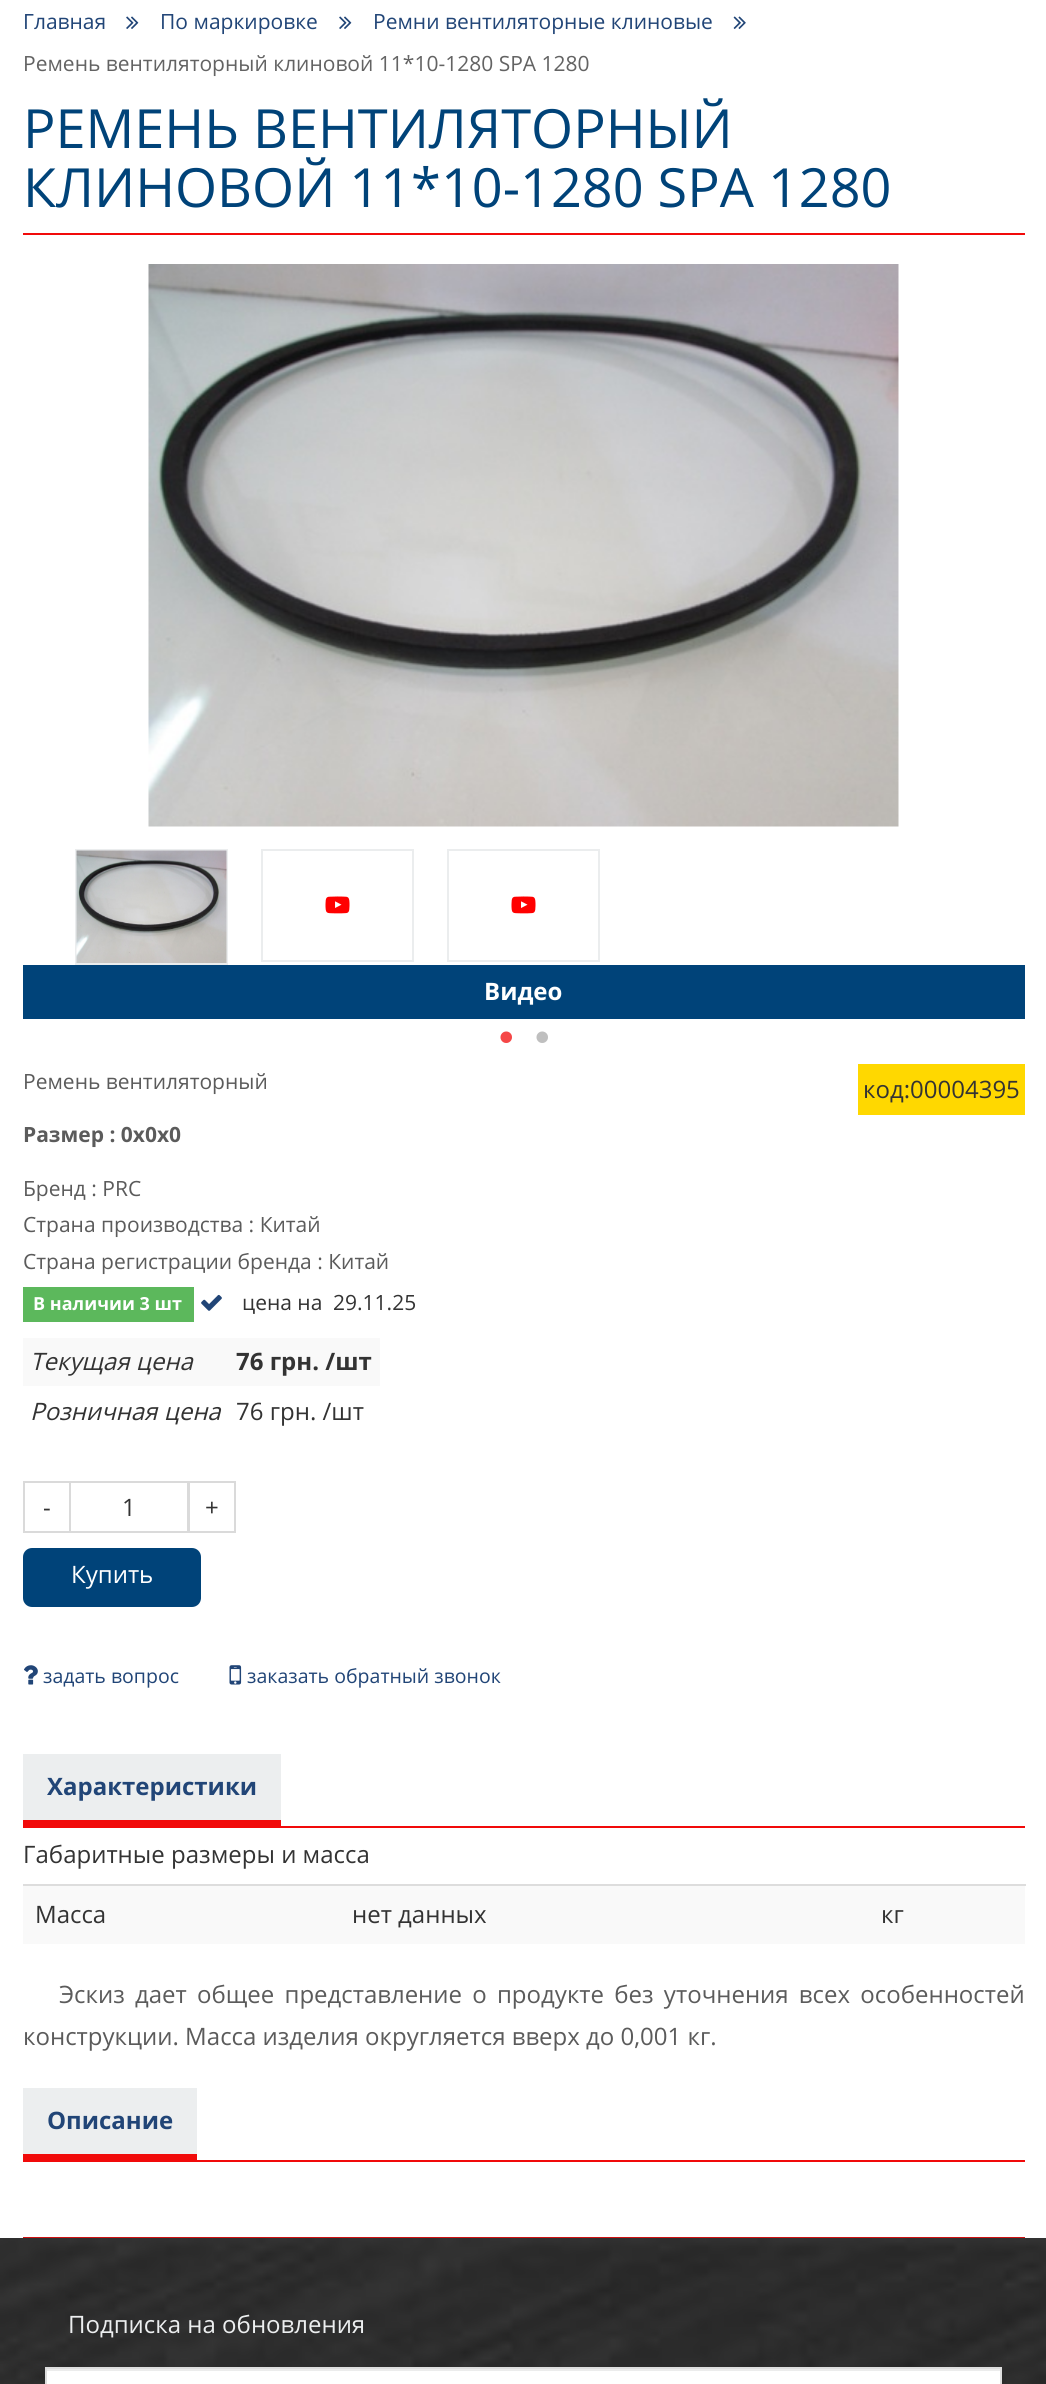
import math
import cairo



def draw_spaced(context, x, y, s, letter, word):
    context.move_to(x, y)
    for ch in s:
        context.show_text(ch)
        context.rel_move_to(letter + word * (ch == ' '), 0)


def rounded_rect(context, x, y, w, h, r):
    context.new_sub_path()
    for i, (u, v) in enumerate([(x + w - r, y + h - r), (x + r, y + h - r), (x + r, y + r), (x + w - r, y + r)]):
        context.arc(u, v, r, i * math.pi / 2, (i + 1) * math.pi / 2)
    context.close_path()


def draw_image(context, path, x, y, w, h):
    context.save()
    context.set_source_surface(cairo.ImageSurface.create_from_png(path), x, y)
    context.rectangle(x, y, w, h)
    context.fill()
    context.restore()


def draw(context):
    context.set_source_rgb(1, 1, 1)
    context.paint()
    draw_image(context, "images/1.png", 126, 16, 13, 13)
    draw_image(context, "images/1.png", 339, 16, 13, 13)
    draw_image(context, "images/2.png", 733, 16, 13, 13)
    context.set_source_rgb(241 / 255, 10 / 255, 10 / 255)
    context.rectangle(23, 233, 1002, 2)
    context.fill()
    draw_image(context, "images/3.png", 148, 264, 751, 563)
    context.rectangle(76, 850, 151, 114)
    context.set_source_rgb(235 / 255, 237 / 255, 238 / 255)
    context.stroke()
    draw_image(context, "images/4.png", 76, 850, 151, 113)
    context.rectangle(262, 850, 151, 111)
    context.stroke()
    draw_image(context, "images/5.png", 325, 896, 25, 18)
    context.rectangle(448, 850, 151, 111)
    context.stroke()
    draw_image(context, "images/5.png", 511, 896, 25, 18)
    context.set_source_rgb(0, 67 / 255, 121 / 255)
    context.rectangle(23, 965, 1002, 54)
    context.fill()
    draw_image(context, "images/6.png", 500, 1031, 12, 12)
    draw_image(context, "images/7.png", 536, 1031, 12, 12)
    context.set_source_rgb(1, 216 / 255, 0)
    context.rectangle(858, 1064, 167, 51)
    context.fill()
    context.set_source_rgb(92 / 255, 184 / 255, 92 / 255)
    context.rectangle(23, 1287, 171, 35)
    context.fill()
    draw_image(context, "images/8.png", 201, 1294, 21, 17)
    context.set_source_rgb(249 / 255, 249 / 255, 249 / 255)
    context.rectangle(23, 1338, 357, 48)
    context.fill()
    context.rectangle(24, 1482, 46, 50)
    context.set_source_rgb(218 / 255, 218 / 255, 218 / 255)
    context.stroke()
    context.rectangle(70, 1482, 118, 50)
    context.stroke()
    context.rectangle(189, 1482, 46, 50)
    context.stroke()
    context.set_source_rgb(0, 67 / 255, 121 / 255)
    rounded_rect(context, 23, 1548, 178, 59, 9)
    context.fill()
    context.new_path()
    context.move_to(199.5, 1583.5)
    context.line_to(201, 1585)
    context.line_to(201, 1598)
    context.curve_to(199, 1601, 190, 1600.5, 186.5, 1600.5)
    context.line_to(184.5, 1598.5)
    context.close_path()
    context.fill()
    draw_image(context, "images/9.png", 24, 1665, 14, 20)
    draw_image(context, "images/10.png", 229, 1665, 13, 20)
    context.set_source_rgb(241 / 255, 10 / 255, 10 / 255)
    context.rectangle(23, 1826, 1002, 2)
    context.fill()
    context.set_source_rgb(236 / 255, 238 / 255, 239 / 255)
    context.rectangle(23, 1754, 258, 66)
    context.fill()
    context.set_source_rgb(241 / 255, 10 / 255, 10 / 255)
    context.rectangle(23, 1820, 258, 6)
    context.fill()
    context.set_source_rgb(249 / 255, 249 / 255, 249 / 255)
    context.rectangle(23, 1886, 1002, 58)
    context.fill()
    context.set_source_rgb(221 / 255, 221 / 255, 221 / 255)
    context.rectangle(23, 1884, 1003, 2)
    context.fill()
    context.set_source_rgb(241 / 255, 10 / 255, 10 / 255)
    context.rectangle(23, 2160, 1002, 2)
    context.fill()
    context.set_source_rgb(236 / 255, 238 / 255, 239 / 255)
    context.rectangle(23, 2088, 174, 66)
    context.fill()
    context.set_source_rgb(241 / 255, 10 / 255, 10 / 255)
    context.rectangle(23, 2154, 174, 6)
    context.fill()
    context.set_source_rgb(207 / 255, 18 / 255, 18 / 255)
    context.rectangle(23, 2237, 1002, 1)
    context.fill()
    draw_image(context, "images/11.png", 0, 2238, 1046, 146)
    context.set_source_rgb(1, 1, 1)
    context.rectangle(47, 2371, 953, 13)
    context.fill()
    context.set_source_rgb(236 / 255, 236 / 255, 236 / 255)
    context.rectangle(47, 2369, 954, 2)
    context.fill()
    context.rectangle(46, 2368, 955, 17)
    context.set_source_rgb(222 / 255, 222 / 255, 222 / 255)
    context.stroke()
    context.select_font_face("Open Sans")
    context.set_font_size(21)
    context.set_source_rgb(33 / 255, 69 / 255, 119 / 255)
    context.move_to(23, 29)
    context.show_text("Главная")
    context.move_to(160, 29)
    context.show_text("По маркировке")
    context.move_to(373, 29)
    context.show_text("Ремни вентиляторные клиновые")
    context.set_source_rgb(99 / 255, 99 / 255, 99 / 255)
    context.move_to(23, 71)
    context.show_text("Ремень вентиляторный клиновой 11*10-1280 SPA 1280")
    context.set_font_size(54)
    context.set_source_rgb(0, 67 / 255, 121 / 255)
    context.move_to(23, 148)
    context.show_text("РЕМЕНЬ ВЕНТИЛЯТОРНЫЙ")
    context.move_to(23, 207)
    context.show_text("КЛИНОВОЙ 11*10-1280 SPA 1280")
    context.select_font_face("Open Sans", cairo.FontSlant.NORMAL, cairo.FontWeight.BOLD)
    context.set_font_size(24)
    context.set_source_rgb(1, 1, 1)
    context.move_to(484, 1000)
    context.show_text("Видео")
    context.select_font_face("Open Sans")
    context.set_font_size(21)
    context.set_source_rgb(91 / 255, 91 / 255, 91 / 255)
    context.move_to(23, 1089)
    context.show_text("Ремень вентиляторный")
    context.set_font_size(24)
    context.set_source_rgb(51 / 255, 51 / 255, 51 / 255)
    context.move_to(863, 1098)
    context.show_text("код:00004395")
    context.select_font_face("Open Sans", cairo.FontSlant.NORMAL, cairo.FontWeight.BOLD)
    context.set_font_size(21)
    context.set_source_rgb(91 / 255, 91 / 255, 91 / 255)
    context.move_to(23, 1142)
    context.show_text("Размер : 0х0х0")
    context.select_font_face("Open Sans")
    context.move_to(23, 1196)
    context.show_text("Бренд : PRC")
    context.move_to(23, 1232)
    context.show_text("Страна производства : Китай")
    context.move_to(23, 1269)
    context.show_text("Страна регистрации бренда : Китай")
    context.select_font_face("Open Sans", cairo.FontSlant.NORMAL, cairo.FontWeight.BOLD)
    context.set_font_size(18)
    context.set_source_rgb(1, 1, 1)
    context.move_to(33, 1310)
    context.show_text("В наличии 3 шт")
    context.select_font_face("Open Sans")
    context.set_font_size(21)
    context.set_source_rgb(51 / 255, 51 / 255, 51 / 255)
    context.move_to(242, 1310)
    context.show_text("цена на")
    context.move_to(333, 1310)
    context.show_text("29.11.25")
    context.select_font_face("Open Sans", cairo.FontSlant.ITALIC)
    context.set_font_size(24)
    context.move_to(30, 1370)
    context.show_text("Текущая цена")
    context.select_font_face("Open Sans", cairo.FontSlant.NORMAL, cairo.FontWeight.BOLD)
    context.move_to(236, 1370)
    context.show_text("76 грн. /шт")
    context.select_font_face("Open Sans", cairo.FontSlant.ITALIC)
    context.move_to(30, 1420)
    context.show_text("Розничная цена")
    context.select_font_face("Open Sans")
    context.move_to(236, 1420)
    context.show_text("76 грн. /шт")
    context.move_to(43, 1516)
    context.show_text("-")
    context.move_to(122, 1516)
    context.show_text("1")
    context.move_to(205, 1516)
    context.show_text("+")
    context.set_source_rgb(1, 1, 1)
    context.move_to(71, 1583)
    context.show_text("Купить")
    context.set_font_size(19.5)
    context.set_source_rgb(33 / 255, 69 / 255, 119 / 255)
    context.move_to(43, 1683)
    context.show_text("задать вопрос")
    context.move_to(247, 1683)
    context.show_text("заказать обратный звонок")
    context.select_font_face("Open Sans", cairo.FontSlant.NORMAL, cairo.FontWeight.BOLD)
    context.set_font_size(24)
    context.move_to(47, 1795)
    context.show_text("Характеристики")
    context.select_font_face("Open Sans")
    context.set_source_rgb(51 / 255, 51 / 255, 51 / 255)
    context.move_to(23, 1863)
    context.show_text("Габаритные размеры и масса")
    context.move_to(35, 1923)
    context.show_text("Масса")
    context.move_to(352, 1923)
    context.show_text("нет данных")
    context.move_to(881, 1923)
    context.show_text("кг")
    context.set_source_rgb(91 / 255, 91 / 255, 91 / 255)
    draw_spaced(context, 59, 2003, "Эскиз дает общее представление о продукте без уточнения всех особенностей", 0, 4)
    context.move_to(23, 2045)
    context.show_text("конструкции. Масса изделия округляется вверх до 0,001 кг.")
    context.select_font_face("Open Sans", cairo.FontSlant.NORMAL, cairo.FontWeight.BOLD)
    context.set_source_rgb(33 / 255, 69 / 255, 119 / 255)
    context.move_to(47, 2129)
    context.show_text("Описание")
    context.select_font_face("Open Sans")
    context.set_source_rgb(236 / 255, 238 / 255, 239 / 255)
    context.move_to(68, 2333)
    context.show_text("Подписка на обновления")


surface = cairo.ImageSurface(cairo.Format.RGB24, 1046, 2384)
context = cairo.Context(surface)
options = cairo.FontOptions()
options.set_hint_metrics(cairo.HintMetrics.OFF)
options.set_hint_style(cairo.HintStyle.NONE)
context.set_font_options(options)
context.set_miter_limit(4)
draw(context)
surface.write_to_png("out.png")
